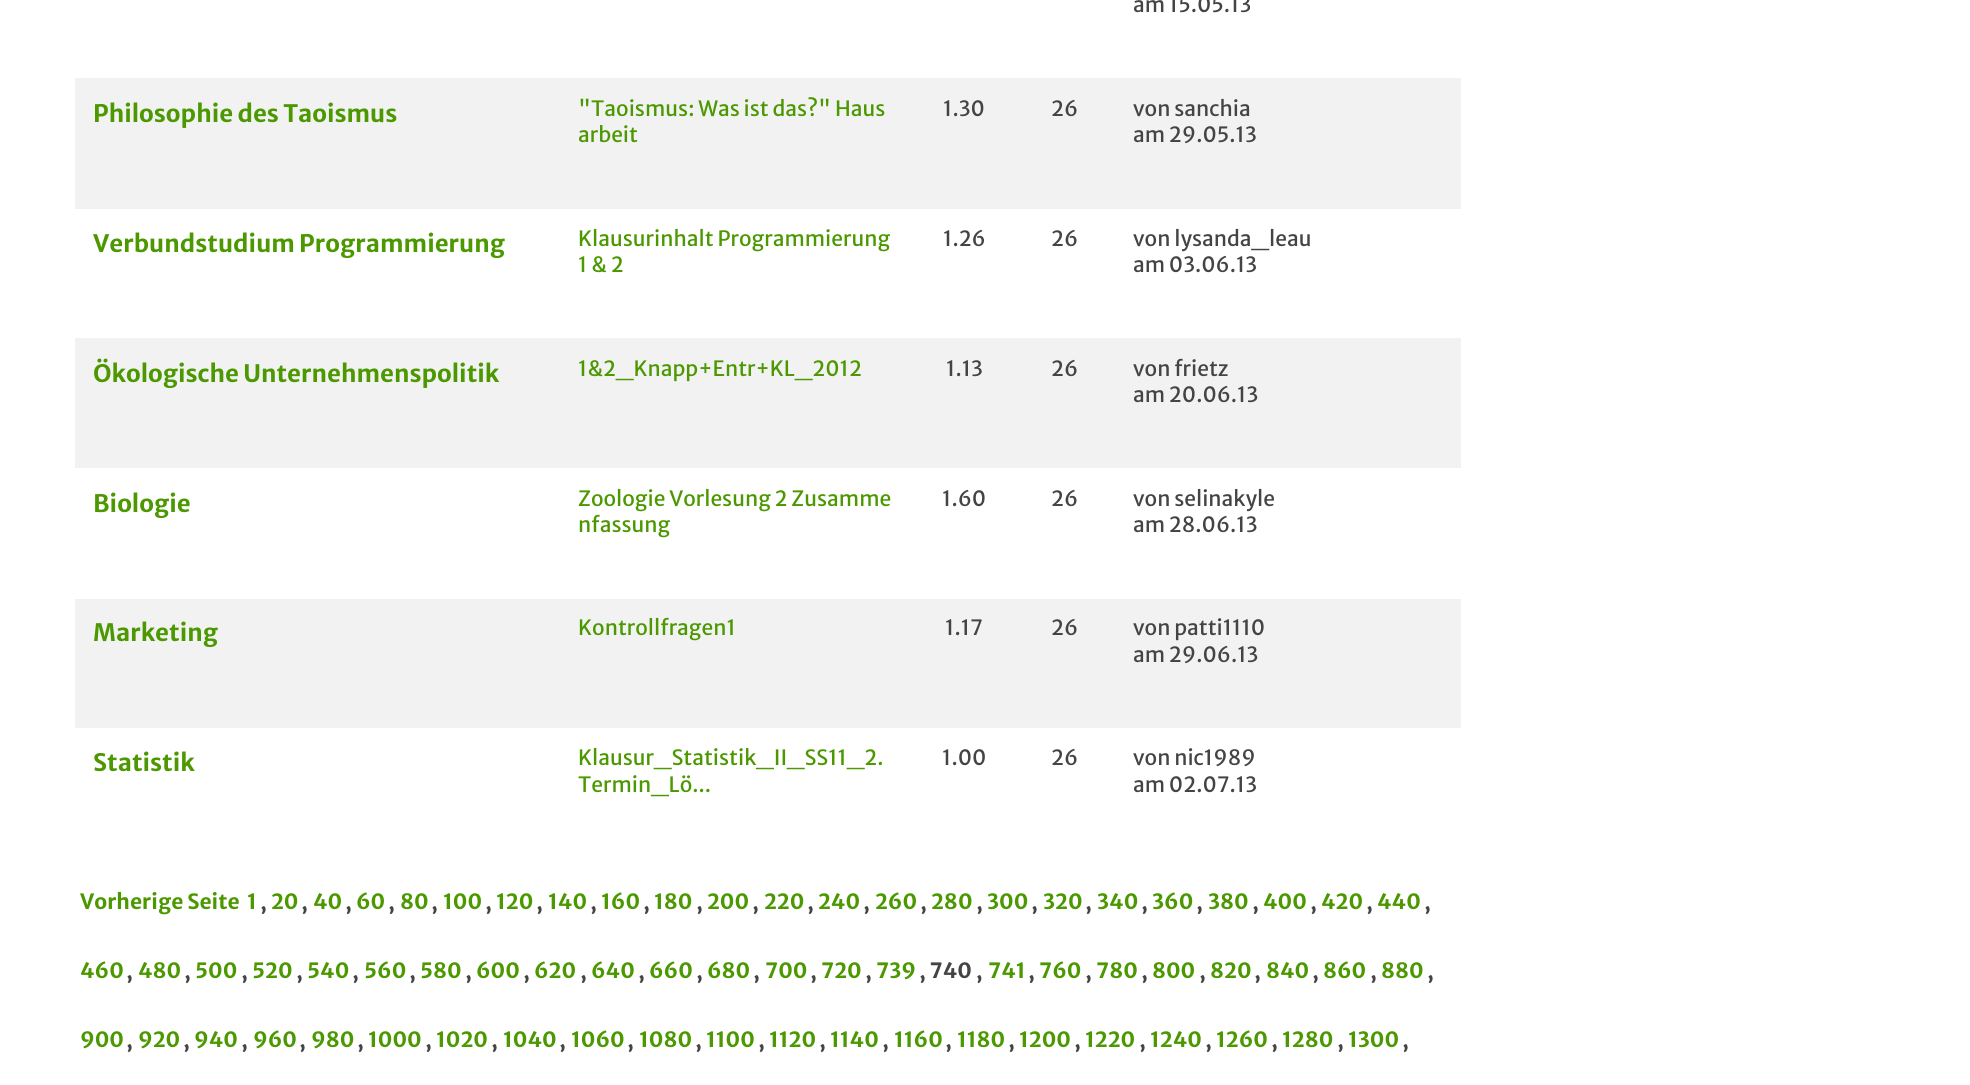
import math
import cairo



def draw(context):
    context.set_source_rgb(1, 1, 1)
    context.paint()
    context.set_source_rgb(242 / 255, 242 / 255, 242 / 255)
    context.rectangle(75, 78, 1386, 131)
    context.fill()
    context.rectangle(75, 338, 1386, 130)
    context.fill()
    context.rectangle(75, 599, 1386, 129)
    context.fill()
    context.select_font_face("Merriweather Sans")
    context.set_font_size(21)
    context.set_source_rgb(68 / 255, 68 / 255, 68 / 255)
    context.move_to(1133, 12)
    context.show_text("am 15.05.13")
    context.select_font_face("Merriweather Sans", cairo.FontSlant.NORMAL, cairo.FontWeight.BOLD)
    context.set_font_size(24)
    context.set_source_rgb(75 / 255, 152 / 255, 0)
    context.move_to(93, 122)
    context.show_text("Philosophie des Taoismus")
    context.select_font_face("Merriweather Sans")
    context.set_font_size(21)
    context.move_to(578, 116)
    context.show_text("\"Taoismus: Was ist das?\" Haus")
    context.move_to(578, 142)
    context.show_text("arbeit")
    context.set_source_rgb(68 / 255, 68 / 255, 68 / 255)
    context.move_to(943, 116)
    context.show_text("1.30")
    context.move_to(1051, 116)
    context.show_text("26")
    context.move_to(1133, 116)
    context.show_text("von sanchia")
    context.move_to(1133, 142)
    context.show_text("am 29.05.13")
    context.select_font_face("Merriweather Sans", cairo.FontSlant.NORMAL, cairo.FontWeight.BOLD)
    context.set_font_size(24)
    context.set_source_rgb(75 / 255, 152 / 255, 0)
    context.move_to(93, 252)
    context.show_text("Verbundstudium Programmierung")
    context.select_font_face("Merriweather Sans")
    context.set_font_size(21)
    context.move_to(578, 246)
    context.show_text("Klausurinhalt Programmierung")
    context.move_to(578, 272)
    context.show_text("1 & 2")
    context.set_source_rgb(68 / 255, 68 / 255, 68 / 255)
    context.move_to(943, 246)
    context.show_text("1.26")
    context.move_to(1051, 246)
    context.show_text("26")
    context.move_to(1133, 246)
    context.show_text("von lysanda_leau")
    context.move_to(1133, 272)
    context.show_text("am 03.06.13")
    context.select_font_face("Merriweather Sans", cairo.FontSlant.NORMAL, cairo.FontWeight.BOLD)
    context.set_font_size(24)
    context.set_source_rgb(75 / 255, 152 / 255, 0)
    context.move_to(93, 382)
    context.show_text("Ökologische Unternehmenspolitik")
    context.select_font_face("Merriweather Sans")
    context.set_font_size(21)
    context.move_to(578, 376)
    context.show_text("1&2_Knapp+Entr+KL_2012")
    context.set_source_rgb(68 / 255, 68 / 255, 68 / 255)
    context.move_to(946, 376)
    context.show_text("1.13")
    context.move_to(1051, 376)
    context.show_text("26")
    context.move_to(1133, 376)
    context.show_text("von frietz")
    context.move_to(1133, 402)
    context.show_text("am 20.06.13")
    context.select_font_face("Merriweather Sans", cairo.FontSlant.NORMAL, cairo.FontWeight.BOLD)
    context.set_font_size(24)
    context.set_source_rgb(75 / 255, 152 / 255, 0)
    context.move_to(93, 512)
    context.show_text("Biologie")
    context.select_font_face("Merriweather Sans")
    context.set_font_size(21)
    context.move_to(578, 506)
    context.show_text("Zoologie Vorlesung 2 Zusamme")
    context.move_to(578, 532)
    context.show_text("nfassung")
    context.set_source_rgb(68 / 255, 68 / 255, 68 / 255)
    context.move_to(942, 506)
    context.show_text("1.60")
    context.move_to(1051, 506)
    context.show_text("26")
    context.move_to(1133, 506)
    context.show_text("von selinakyle")
    context.move_to(1133, 532)
    context.show_text("am 28.06.13")
    context.select_font_face("Merriweather Sans", cairo.FontSlant.NORMAL, cairo.FontWeight.BOLD)
    context.set_font_size(24)
    context.set_source_rgb(75 / 255, 152 / 255, 0)
    context.move_to(93, 641)
    context.show_text("Marketing")
    context.select_font_face("Merriweather Sans")
    context.set_font_size(21)
    context.move_to(578, 635)
    context.show_text("Kontrollfragen1")
    context.set_source_rgb(68 / 255, 68 / 255, 68 / 255)
    context.move_to(945, 635)
    context.show_text("1.17")
    context.move_to(1051, 635)
    context.show_text("26")
    context.move_to(1133, 635)
    context.show_text("von patti1110")
    context.move_to(1133, 662)
    context.show_text("am 29.06.13")
    context.select_font_face("Merriweather Sans", cairo.FontSlant.NORMAL, cairo.FontWeight.BOLD)
    context.set_font_size(24)
    context.set_source_rgb(75 / 255, 152 / 255, 0)
    context.move_to(93, 771)
    context.show_text("Statistik")
    context.select_font_face("Merriweather Sans")
    context.set_font_size(21)
    context.move_to(578, 765)
    context.show_text("Klausur_Statistik_II_SS11_2.")
    context.move_to(578, 792)
    context.show_text("Termin_Lö...")
    context.set_source_rgb(68 / 255, 68 / 255, 68 / 255)
    context.move_to(942, 765)
    context.show_text("1.00")
    context.move_to(1051, 765)
    context.show_text("26")
    context.move_to(1133, 765)
    context.show_text("von nic1989")
    context.move_to(1133, 792)
    context.show_text("am 02.07.13")
    context.select_font_face("Merriweather Sans", cairo.FontSlant.NORMAL, cairo.FontWeight.BOLD)
    context.set_source_rgb(75 / 255, 152 / 255, 0)
    context.move_to(80, 909)
    context.show_text("Vorherige Seite")
    context.move_to(247, 909)
    context.show_text("1")
    context.set_source_rgb(68 / 255, 68 / 255, 68 / 255)
    context.move_to(260, 909)
    context.show_text(",")
    context.set_source_rgb(75 / 255, 152 / 255, 0)
    context.move_to(271, 909)
    context.show_text("20")
    context.set_source_rgb(68 / 255, 68 / 255, 68 / 255)
    context.move_to(301, 909)
    context.show_text(",")
    context.set_source_rgb(75 / 255, 152 / 255, 0)
    context.move_to(313, 909)
    context.show_text("40")
    context.set_source_rgb(68 / 255, 68 / 255, 68 / 255)
    context.move_to(345, 909)
    context.show_text(",")
    context.set_source_rgb(75 / 255, 152 / 255, 0)
    context.move_to(356, 909)
    context.show_text("60")
    context.set_source_rgb(68 / 255, 68 / 255, 68 / 255)
    context.move_to(388, 909)
    context.show_text(",")
    context.set_source_rgb(75 / 255, 152 / 255, 0)
    context.move_to(400, 909)
    context.show_text("80")
    context.set_source_rgb(68 / 255, 68 / 255, 68 / 255)
    context.move_to(431, 909)
    context.show_text(",")
    context.set_source_rgb(75 / 255, 152 / 255, 0)
    context.move_to(443, 909)
    context.show_text("100")
    context.set_source_rgb(68 / 255, 68 / 255, 68 / 255)
    context.move_to(485, 909)
    context.show_text(",")
    context.set_source_rgb(75 / 255, 152 / 255, 0)
    context.move_to(496, 909)
    context.show_text("120")
    context.set_source_rgb(68 / 255, 68 / 255, 68 / 255)
    context.move_to(536, 909)
    context.show_text(",")
    context.set_source_rgb(75 / 255, 152 / 255, 0)
    context.move_to(548, 909)
    context.show_text("140")
    context.set_source_rgb(68 / 255, 68 / 255, 68 / 255)
    context.move_to(590, 909)
    context.show_text(",")
    context.set_source_rgb(75 / 255, 152 / 255, 0)
    context.move_to(601, 909)
    context.show_text("160")
    context.set_source_rgb(68 / 255, 68 / 255, 68 / 255)
    context.move_to(643, 909)
    context.show_text(",")
    context.set_source_rgb(75 / 255, 152 / 255, 0)
    context.move_to(654, 909)
    context.show_text("180")
    context.set_source_rgb(68 / 255, 68 / 255, 68 / 255)
    context.move_to(696, 909)
    context.show_text(",")
    context.set_source_rgb(75 / 255, 152 / 255, 0)
    context.move_to(707, 909)
    context.show_text("200")
    context.set_source_rgb(68 / 255, 68 / 255, 68 / 255)
    context.move_to(752, 909)
    context.show_text(",")
    context.set_source_rgb(75 / 255, 152 / 255, 0)
    context.move_to(764, 909)
    context.show_text("220")
    context.set_source_rgb(68 / 255, 68 / 255, 68 / 255)
    context.move_to(807, 909)
    context.show_text(",")
    context.set_source_rgb(75 / 255, 152 / 255, 0)
    context.move_to(818, 909)
    context.show_text("240")
    context.set_source_rgb(68 / 255, 68 / 255, 68 / 255)
    context.move_to(863, 909)
    context.show_text(",")
    context.set_source_rgb(75 / 255, 152 / 255, 0)
    context.move_to(875, 909)
    context.show_text("260")
    context.set_source_rgb(68 / 255, 68 / 255, 68 / 255)
    context.move_to(920, 909)
    context.show_text(",")
    context.set_source_rgb(75 / 255, 152 / 255, 0)
    context.move_to(931, 909)
    context.show_text("280")
    context.set_source_rgb(68 / 255, 68 / 255, 68 / 255)
    context.move_to(976, 909)
    context.show_text(",")
    context.set_source_rgb(75 / 255, 152 / 255, 0)
    context.move_to(987, 909)
    context.show_text("300")
    context.set_source_rgb(68 / 255, 68 / 255, 68 / 255)
    context.move_to(1031, 909)
    context.show_text(",")
    context.set_source_rgb(75 / 255, 152 / 255, 0)
    context.move_to(1043, 909)
    context.show_text("320")
    context.set_source_rgb(68 / 255, 68 / 255, 68 / 255)
    context.move_to(1085, 909)
    context.show_text(",")
    context.set_source_rgb(75 / 255, 152 / 255, 0)
    context.move_to(1097, 909)
    context.show_text("340")
    context.set_source_rgb(68 / 255, 68 / 255, 68 / 255)
    context.move_to(1141, 909)
    context.show_text(",")
    context.set_source_rgb(75 / 255, 152 / 255, 0)
    context.move_to(1152, 909)
    context.show_text("360")
    context.set_source_rgb(68 / 255, 68 / 255, 68 / 255)
    context.move_to(1196, 909)
    context.show_text(",")
    context.set_source_rgb(75 / 255, 152 / 255, 0)
    context.move_to(1208, 909)
    context.show_text("380")
    context.set_source_rgb(68 / 255, 68 / 255, 68 / 255)
    context.move_to(1252, 909)
    context.show_text(",")
    context.set_source_rgb(75 / 255, 152 / 255, 0)
    context.move_to(1263, 909)
    context.show_text("400")
    context.set_source_rgb(68 / 255, 68 / 255, 68 / 255)
    context.move_to(1310, 909)
    context.show_text(",")
    context.set_source_rgb(75 / 255, 152 / 255, 0)
    context.move_to(1321, 909)
    context.show_text("420")
    context.set_source_rgb(68 / 255, 68 / 255, 68 / 255)
    context.move_to(1366, 909)
    context.show_text(",")
    context.set_source_rgb(75 / 255, 152 / 255, 0)
    context.move_to(1377, 909)
    context.show_text("440")
    context.set_source_rgb(68 / 255, 68 / 255, 68 / 255)
    context.move_to(1424, 909)
    context.show_text(",")
    context.set_source_rgb(75 / 255, 152 / 255, 0)
    context.move_to(80, 978)
    context.show_text("460")
    context.set_source_rgb(68 / 255, 68 / 255, 68 / 255)
    context.move_to(126, 978)
    context.show_text(",")
    context.set_source_rgb(75 / 255, 152 / 255, 0)
    context.move_to(138, 978)
    context.show_text("480")
    context.set_source_rgb(68 / 255, 68 / 255, 68 / 255)
    context.move_to(184, 978)
    context.show_text(",")
    context.set_source_rgb(75 / 255, 152 / 255, 0)
    context.move_to(195, 978)
    context.show_text("500")
    context.set_source_rgb(68 / 255, 68 / 255, 68 / 255)
    context.move_to(241, 978)
    context.show_text(",")
    context.set_source_rgb(75 / 255, 152 / 255, 0)
    context.move_to(252, 978)
    context.show_text("520")
    context.set_source_rgb(68 / 255, 68 / 255, 68 / 255)
    context.move_to(296, 978)
    context.show_text(",")
    context.set_source_rgb(75 / 255, 152 / 255, 0)
    context.move_to(307, 978)
    context.show_text("540")
    context.set_source_rgb(68 / 255, 68 / 255, 68 / 255)
    context.move_to(352, 978)
    context.show_text(",")
    context.set_source_rgb(75 / 255, 152 / 255, 0)
    context.move_to(364, 978)
    context.show_text("560")
    context.set_source_rgb(68 / 255, 68 / 255, 68 / 255)
    context.move_to(409, 978)
    context.show_text(",")
    context.set_source_rgb(75 / 255, 152 / 255, 0)
    context.move_to(420, 978)
    context.show_text("580")
    context.set_source_rgb(68 / 255, 68 / 255, 68 / 255)
    context.move_to(465, 978)
    context.show_text(",")
    context.set_source_rgb(75 / 255, 152 / 255, 0)
    context.move_to(476, 978)
    context.show_text("600")
    context.set_source_rgb(68 / 255, 68 / 255, 68 / 255)
    context.move_to(523, 978)
    context.show_text(",")
    context.set_source_rgb(75 / 255, 152 / 255, 0)
    context.move_to(534, 978)
    context.show_text("620")
    context.set_source_rgb(68 / 255, 68 / 255, 68 / 255)
    context.move_to(580, 978)
    context.show_text(",")
    context.set_source_rgb(75 / 255, 152 / 255, 0)
    context.move_to(591, 978)
    context.show_text("640")
    context.set_source_rgb(68 / 255, 68 / 255, 68 / 255)
    context.move_to(638, 978)
    context.show_text(",")
    context.set_source_rgb(75 / 255, 152 / 255, 0)
    context.move_to(649, 978)
    context.show_text("660")
    context.set_source_rgb(68 / 255, 68 / 255, 68 / 255)
    context.move_to(696, 978)
    context.show_text(",")
    context.set_source_rgb(75 / 255, 152 / 255, 0)
    context.move_to(707, 978)
    context.show_text("680")
    context.set_source_rgb(68 / 255, 68 / 255, 68 / 255)
    context.move_to(753, 978)
    context.show_text(",")
    context.set_source_rgb(75 / 255, 152 / 255, 0)
    context.move_to(765, 978)
    context.show_text("700")
    context.set_source_rgb(68 / 255, 68 / 255, 68 / 255)
    context.move_to(810, 978)
    context.show_text(",")
    context.set_source_rgb(75 / 255, 152 / 255, 0)
    context.move_to(821, 978)
    context.show_text("720")
    context.set_source_rgb(68 / 255, 68 / 255, 68 / 255)
    context.move_to(865, 978)
    context.show_text(",")
    context.set_source_rgb(75 / 255, 152 / 255, 0)
    context.move_to(876, 978)
    context.show_text("739")
    context.set_source_rgb(68 / 255, 68 / 255, 68 / 255)
    context.move_to(919, 978)
    context.show_text(", 740 ,")
    context.set_source_rgb(75 / 255, 152 / 255, 0)
    context.move_to(988, 978)
    context.show_text("741")
    context.set_source_rgb(68 / 255, 68 / 255, 68 / 255)
    context.move_to(1028, 978)
    context.show_text(",")
    context.set_source_rgb(75 / 255, 152 / 255, 0)
    context.move_to(1039, 978)
    context.show_text("760")
    context.set_source_rgb(68 / 255, 68 / 255, 68 / 255)
    context.move_to(1085, 978)
    context.show_text(",")
    context.set_source_rgb(75 / 255, 152 / 255, 0)
    context.move_to(1096, 978)
    context.show_text("780")
    context.set_source_rgb(68 / 255, 68 / 255, 68 / 255)
    context.move_to(1141, 978)
    context.show_text(",")
    context.set_source_rgb(75 / 255, 152 / 255, 0)
    context.move_to(1152, 978)
    context.show_text("800")
    context.set_source_rgb(68 / 255, 68 / 255, 68 / 255)
    context.move_to(1199, 978)
    context.show_text(",")
    context.set_source_rgb(75 / 255, 152 / 255, 0)
    context.move_to(1210, 978)
    context.show_text("820")
    context.set_source_rgb(68 / 255, 68 / 255, 68 / 255)
    context.move_to(1254, 978)
    context.show_text(",")
    context.set_source_rgb(75 / 255, 152 / 255, 0)
    context.move_to(1266, 978)
    context.show_text("840")
    context.set_source_rgb(68 / 255, 68 / 255, 68 / 255)
    context.move_to(1312, 978)
    context.show_text(",")
    context.set_source_rgb(75 / 255, 152 / 255, 0)
    context.move_to(1323, 978)
    context.show_text("860")
    context.set_source_rgb(68 / 255, 68 / 255, 68 / 255)
    context.move_to(1370, 978)
    context.show_text(",")
    context.set_source_rgb(75 / 255, 152 / 255, 0)
    context.move_to(1381, 978)
    context.show_text("880")
    context.set_source_rgb(68 / 255, 68 / 255, 68 / 255)
    context.move_to(1427, 978)
    context.show_text(",")
    context.set_source_rgb(75 / 255, 152 / 255, 0)
    context.move_to(80, 1047)
    context.show_text("900")
    context.set_source_rgb(68 / 255, 68 / 255, 68 / 255)
    context.move_to(126, 1047)
    context.show_text(",")
    context.set_source_rgb(75 / 255, 152 / 255, 0)
    context.move_to(138, 1047)
    context.show_text("920")
    context.set_source_rgb(68 / 255, 68 / 255, 68 / 255)
    context.move_to(183, 1047)
    context.show_text(",")
    context.set_source_rgb(75 / 255, 152 / 255, 0)
    context.move_to(194, 1047)
    context.show_text("940")
    context.set_source_rgb(68 / 255, 68 / 255, 68 / 255)
    context.move_to(241, 1047)
    context.show_text(",")
    context.set_source_rgb(75 / 255, 152 / 255, 0)
    context.move_to(253, 1047)
    context.show_text("960")
    context.set_source_rgb(68 / 255, 68 / 255, 68 / 255)
    context.move_to(299, 1047)
    context.show_text(",")
    context.set_source_rgb(75 / 255, 152 / 255, 0)
    context.move_to(311, 1047)
    context.show_text("980")
    context.set_source_rgb(68 / 255, 68 / 255, 68 / 255)
    context.move_to(357, 1047)
    context.show_text(",")
    context.set_source_rgb(75 / 255, 152 / 255, 0)
    context.move_to(368, 1047)
    context.show_text("1000")
    context.set_source_rgb(68 / 255, 68 / 255, 68 / 255)
    context.move_to(425, 1047)
    context.show_text(",")
    context.set_source_rgb(75 / 255, 152 / 255, 0)
    context.move_to(436, 1047)
    context.show_text("1020")
    context.set_source_rgb(68 / 255, 68 / 255, 68 / 255)
    context.move_to(491, 1047)
    context.show_text(",")
    context.set_source_rgb(75 / 255, 152 / 255, 0)
    context.move_to(503, 1047)
    context.show_text("1040")
    context.set_source_rgb(68 / 255, 68 / 255, 68 / 255)
    context.move_to(559, 1047)
    context.show_text(",")
    context.set_source_rgb(75 / 255, 152 / 255, 0)
    context.move_to(571, 1047)
    context.show_text("1060")
    context.set_source_rgb(68 / 255, 68 / 255, 68 / 255)
    context.move_to(627, 1047)
    context.show_text(",")
    context.set_source_rgb(75 / 255, 152 / 255, 0)
    context.move_to(639, 1047)
    context.show_text("1080")
    context.set_source_rgb(68 / 255, 68 / 255, 68 / 255)
    context.move_to(695, 1047)
    context.show_text(",")
    context.set_source_rgb(75 / 255, 152 / 255, 0)
    context.move_to(706, 1047)
    context.show_text("1100")
    context.set_source_rgb(68 / 255, 68 / 255, 68 / 255)
    context.move_to(758, 1047)
    context.show_text(",")
    context.set_source_rgb(75 / 255, 152 / 255, 0)
    context.move_to(769, 1047)
    context.show_text("1120")
    context.set_source_rgb(68 / 255, 68 / 255, 68 / 255)
    context.move_to(819, 1047)
    context.show_text(",")
    context.set_source_rgb(75 / 255, 152 / 255, 0)
    context.move_to(830, 1047)
    context.show_text("1140")
    context.set_source_rgb(68 / 255, 68 / 255, 68 / 255)
    context.move_to(882, 1047)
    context.show_text(",")
    context.set_source_rgb(75 / 255, 152 / 255, 0)
    context.move_to(894, 1047)
    context.show_text("1160")
    context.set_source_rgb(68 / 255, 68 / 255, 68 / 255)
    context.move_to(945, 1047)
    context.show_text(",")
    context.set_source_rgb(75 / 255, 152 / 255, 0)
    context.move_to(957, 1047)
    context.show_text("1180")
    context.set_source_rgb(68 / 255, 68 / 255, 68 / 255)
    context.move_to(1008, 1047)
    context.show_text(",")
    context.set_source_rgb(75 / 255, 152 / 255, 0)
    context.move_to(1019, 1047)
    context.show_text("1200")
    context.set_source_rgb(68 / 255, 68 / 255, 68 / 255)
    context.move_to(1074, 1047)
    context.show_text(",")
    context.set_source_rgb(75 / 255, 152 / 255, 0)
    context.move_to(1085, 1047)
    context.show_text("1220")
    context.set_source_rgb(68 / 255, 68 / 255, 68 / 255)
    context.move_to(1139, 1047)
    context.show_text(",")
    context.set_source_rgb(75 / 255, 152 / 255, 0)
    context.move_to(1150, 1047)
    context.show_text("1240")
    context.set_source_rgb(68 / 255, 68 / 255, 68 / 255)
    context.move_to(1205, 1047)
    context.show_text(",")
    context.set_source_rgb(75 / 255, 152 / 255, 0)
    context.move_to(1216, 1047)
    context.show_text("1260")
    context.set_source_rgb(68 / 255, 68 / 255, 68 / 255)
    context.move_to(1271, 1047)
    context.show_text(",")
    context.set_source_rgb(75 / 255, 152 / 255, 0)
    context.move_to(1282, 1047)
    context.show_text("1280")
    context.set_source_rgb(68 / 255, 68 / 255, 68 / 255)
    context.move_to(1337, 1047)
    context.show_text(",")
    context.set_source_rgb(75 / 255, 152 / 255, 0)
    context.move_to(1348, 1047)
    context.show_text("1300")
    context.set_source_rgb(68 / 255, 68 / 255, 68 / 255)
    context.move_to(1402, 1047)
    context.show_text(",")


surface = cairo.ImageSurface(cairo.Format.RGB24, 1970, 1085)
context = cairo.Context(surface)
options = cairo.FontOptions()
options.set_hint_metrics(cairo.HintMetrics.OFF)
options.set_hint_style(cairo.HintStyle.NONE)
context.set_font_options(options)
context.set_miter_limit(4)
draw(context)
surface.write_to_png("out.png")
